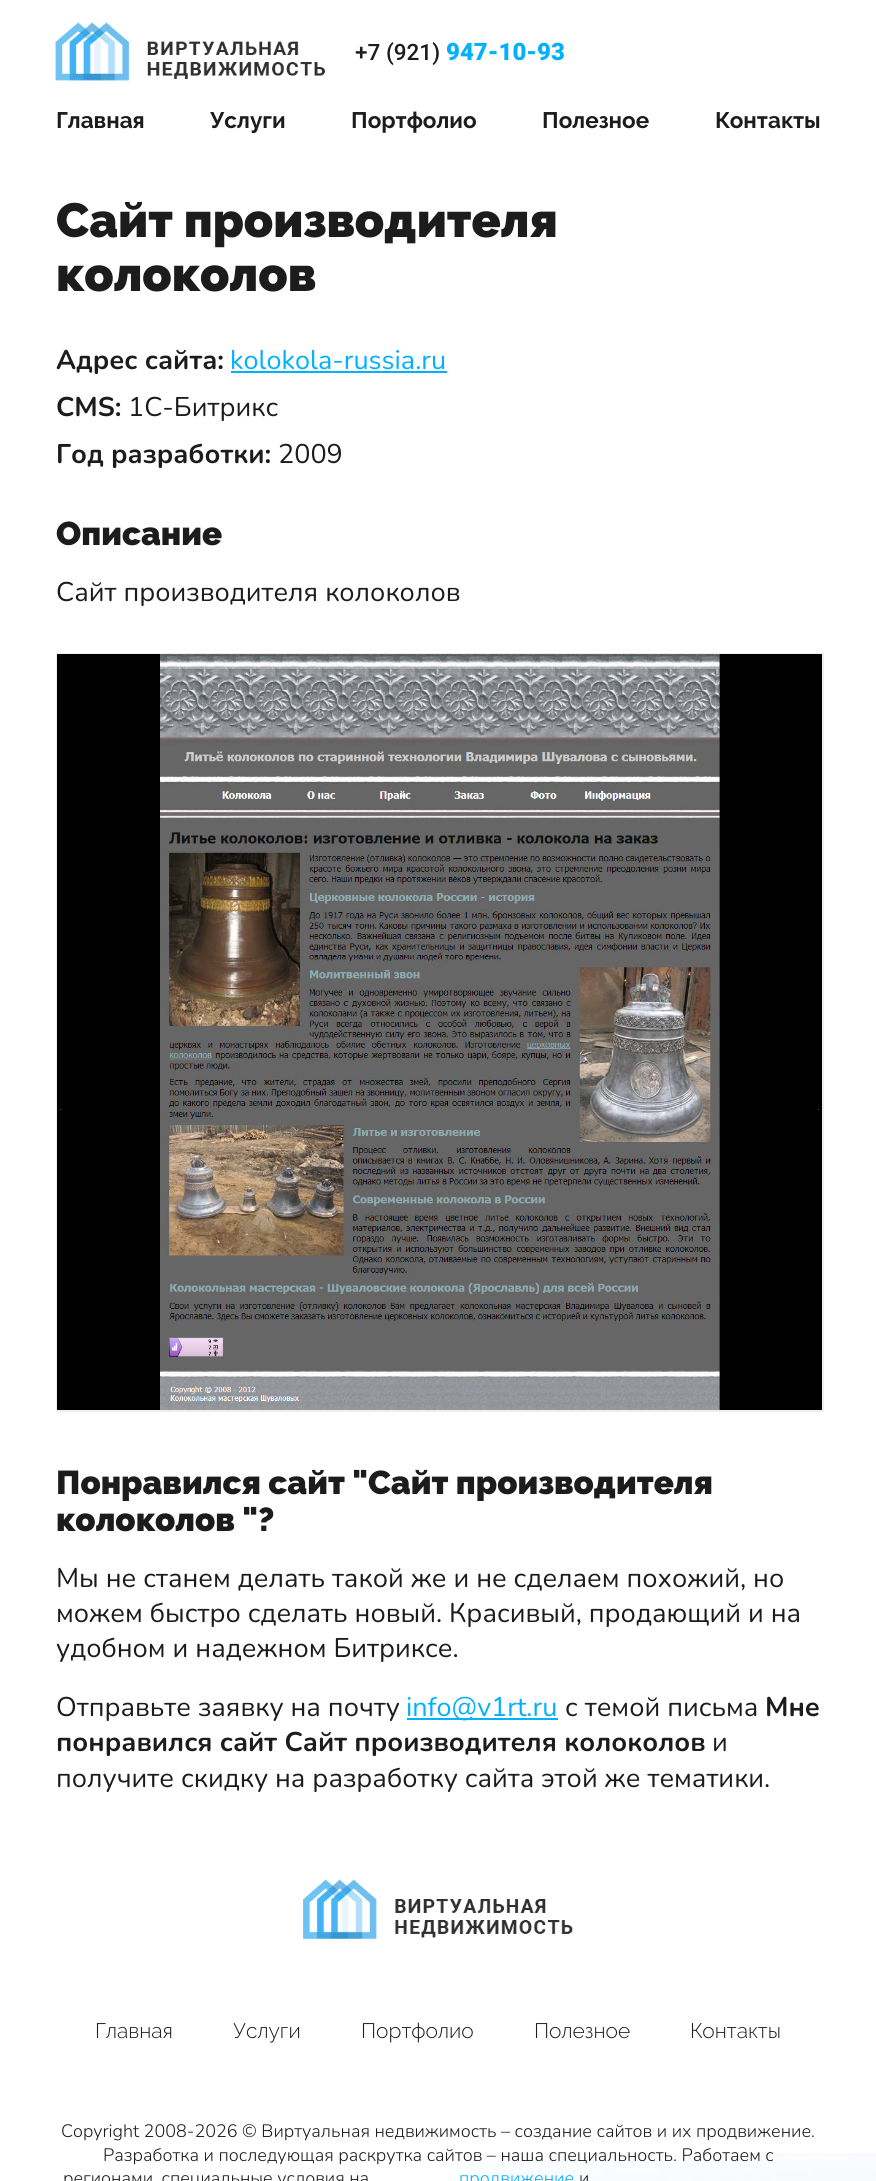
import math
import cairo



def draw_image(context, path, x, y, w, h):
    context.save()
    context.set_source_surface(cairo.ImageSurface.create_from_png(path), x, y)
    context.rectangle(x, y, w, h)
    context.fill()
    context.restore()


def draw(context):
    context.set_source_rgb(1, 1, 1)
    context.paint()
    draw_image(context, "images/1.png", 55, 22, 271, 59)
    context.set_source_rgb(1 / 255, 176 / 255, 1)
    context.rectangle(231, 371, 216, 2)
    context.fill()
    context.rectangle(57, 654, 766, 757)
    context.set_source_rgb(238 / 255, 238 / 255, 238 / 255)
    context.stroke()
    draw_image(context, "images/2.png", 57, 654, 765, 756)
    context.set_source_rgb(1 / 255, 176 / 255, 1)
    context.rectangle(407, 1718, 151, 2)
    context.fill()
    draw_image(context, "images/3.png", 472, 2153, 404, 28)
    draw_image(context, "images/4.png", 303, 1879, 270, 60)
    context.select_font_face("Roboto Medium")
    context.set_font_size(22.5)
    context.set_source_rgb(28 / 255, 28 / 255, 28 / 255)
    context.move_to(355, 60)
    context.show_text("+7 (921)")
    context.select_font_face("Roboto Black")
    context.set_font_size(24)
    context.set_source_rgb(1 / 255, 176 / 255, 1)
    context.move_to(446, 60)
    context.show_text("947-10-93")
    context.select_font_face("Raleway", cairo.FontSlant.NORMAL, cairo.FontWeight.BOLD)
    context.set_font_size(22.5)
    context.set_source_rgb(28 / 255, 28 / 255, 28 / 255)
    context.move_to(56, 128)
    context.show_text("Главная")
    context.move_to(210, 128)
    context.show_text("Услуги")
    context.move_to(351, 128)
    context.show_text("Портфолио")
    context.move_to(542, 128)
    context.show_text("Полезное")
    context.move_to(715, 128)
    context.show_text("Контакты")
    context.select_font_face("Raleway Black")
    context.set_font_size(48)
    context.move_to(56, 237)
    context.show_text("Сайт производителя")
    context.move_to(56, 291)
    context.show_text("колоколов")
    context.select_font_face("Nunito", cairo.FontSlant.NORMAL, cairo.FontWeight.BOLD)
    context.set_font_size(27)
    context.move_to(56, 369)
    context.show_text("Адрес сайта:")
    context.select_font_face("Nunito")
    context.set_source_rgb(1 / 255, 176 / 255, 1)
    context.move_to(230, 369)
    context.show_text("kolokola-russia.ru")
    context.select_font_face("Nunito", cairo.FontSlant.NORMAL, cairo.FontWeight.BOLD)
    context.set_source_rgb(28 / 255, 28 / 255, 28 / 255)
    context.move_to(56, 416)
    context.show_text("CMS:")
    context.select_font_face("Nunito")
    context.move_to(128, 416)
    context.show_text("1С-Битрикс")
    context.select_font_face("Nunito", cairo.FontSlant.NORMAL, cairo.FontWeight.BOLD)
    context.move_to(56, 463)
    context.show_text("Год разработки:")
    context.select_font_face("Nunito")
    context.move_to(278, 463)
    context.show_text("2009")
    context.select_font_face("Raleway Black")
    context.set_font_size(33)
    context.move_to(56, 545)
    context.show_text("Описание")
    context.select_font_face("Nunito")
    context.set_font_size(27)
    context.move_to(56, 601)
    context.show_text("Сайт производителя колоколов")
    context.select_font_face("Raleway Black")
    context.set_font_size(33)
    context.move_to(56, 1494)
    context.show_text("Понравился сайт \"Сайт производителя")
    context.move_to(56, 1531)
    context.show_text("колоколов \"?")
    context.select_font_face("Nunito")
    context.set_font_size(27)
    context.move_to(56, 1587)
    context.show_text("Мы не станем делать такой же и не сделаем похожий, но")
    context.move_to(56, 1622)
    context.show_text("можем быстро сделать новый. Красивый, продающий и на")
    context.move_to(56, 1657)
    context.show_text("удобном и надежном Битриксе.")
    context.move_to(56, 1716)
    context.show_text("Отправьте заявку на почту")
    context.set_source_rgb(1 / 255, 176 / 255, 1)
    context.move_to(406, 1716)
    context.show_text("info@v1rt.ru")
    context.set_source_rgb(28 / 255, 28 / 255, 28 / 255)
    context.move_to(565, 1716)
    context.show_text("с темой письма")
    context.select_font_face("Nunito", cairo.FontSlant.NORMAL, cairo.FontWeight.BOLD)
    context.move_to(765, 1716)
    context.show_text("Мне")
    context.move_to(56, 1751)
    context.show_text("понравился сайт Сайт производителя колоколов")
    context.select_font_face("Nunito")
    context.move_to(712, 1751)
    context.show_text("и")
    context.move_to(56, 1787)
    context.show_text("получите скидку на разработку сайта этой же тематики.")
    context.select_font_face("Raleway Light")
    context.set_font_size(21)
    context.move_to(95, 2038)
    context.show_text("Главная")
    context.move_to(233, 2038)
    context.show_text("Услуги")
    context.move_to(361, 2038)
    context.show_text("Портфолио")
    context.move_to(534, 2038)
    context.show_text("Полезное")
    context.move_to(690, 2038)
    context.show_text("Контакты")
    context.select_font_face("Nunito Light")
    context.set_font_size(18)
    context.move_to(61, 2137)
    context.show_text("Copyright 2008-2026 © Виртуальная недвижимость – создание сайтов и их продвижение.")
    context.move_to(103, 2161)
    context.show_text("Разработка и последующая раскрутка сайтов – наша специальность. Работаем с")
    context.move_to(63, 2184)
    context.show_text("регионами, специальные условия на")
    context.set_source_rgb(1 / 255, 176 / 255, 1)
    context.move_to(459, 2184)
    context.show_text("продвижение")
    context.set_source_rgb(28 / 255, 28 / 255, 28 / 255)
    context.move_to(579, 2184)
    context.show_text("и")


surface = cairo.ImageSurface(cairo.Format.RGB24, 876, 2181)
context = cairo.Context(surface)
options = cairo.FontOptions()
options.set_hint_metrics(cairo.HintMetrics.OFF)
options.set_hint_style(cairo.HintStyle.NONE)
context.set_font_options(options)
context.set_miter_limit(4)
draw(context)
surface.write_to_png("out.png")
